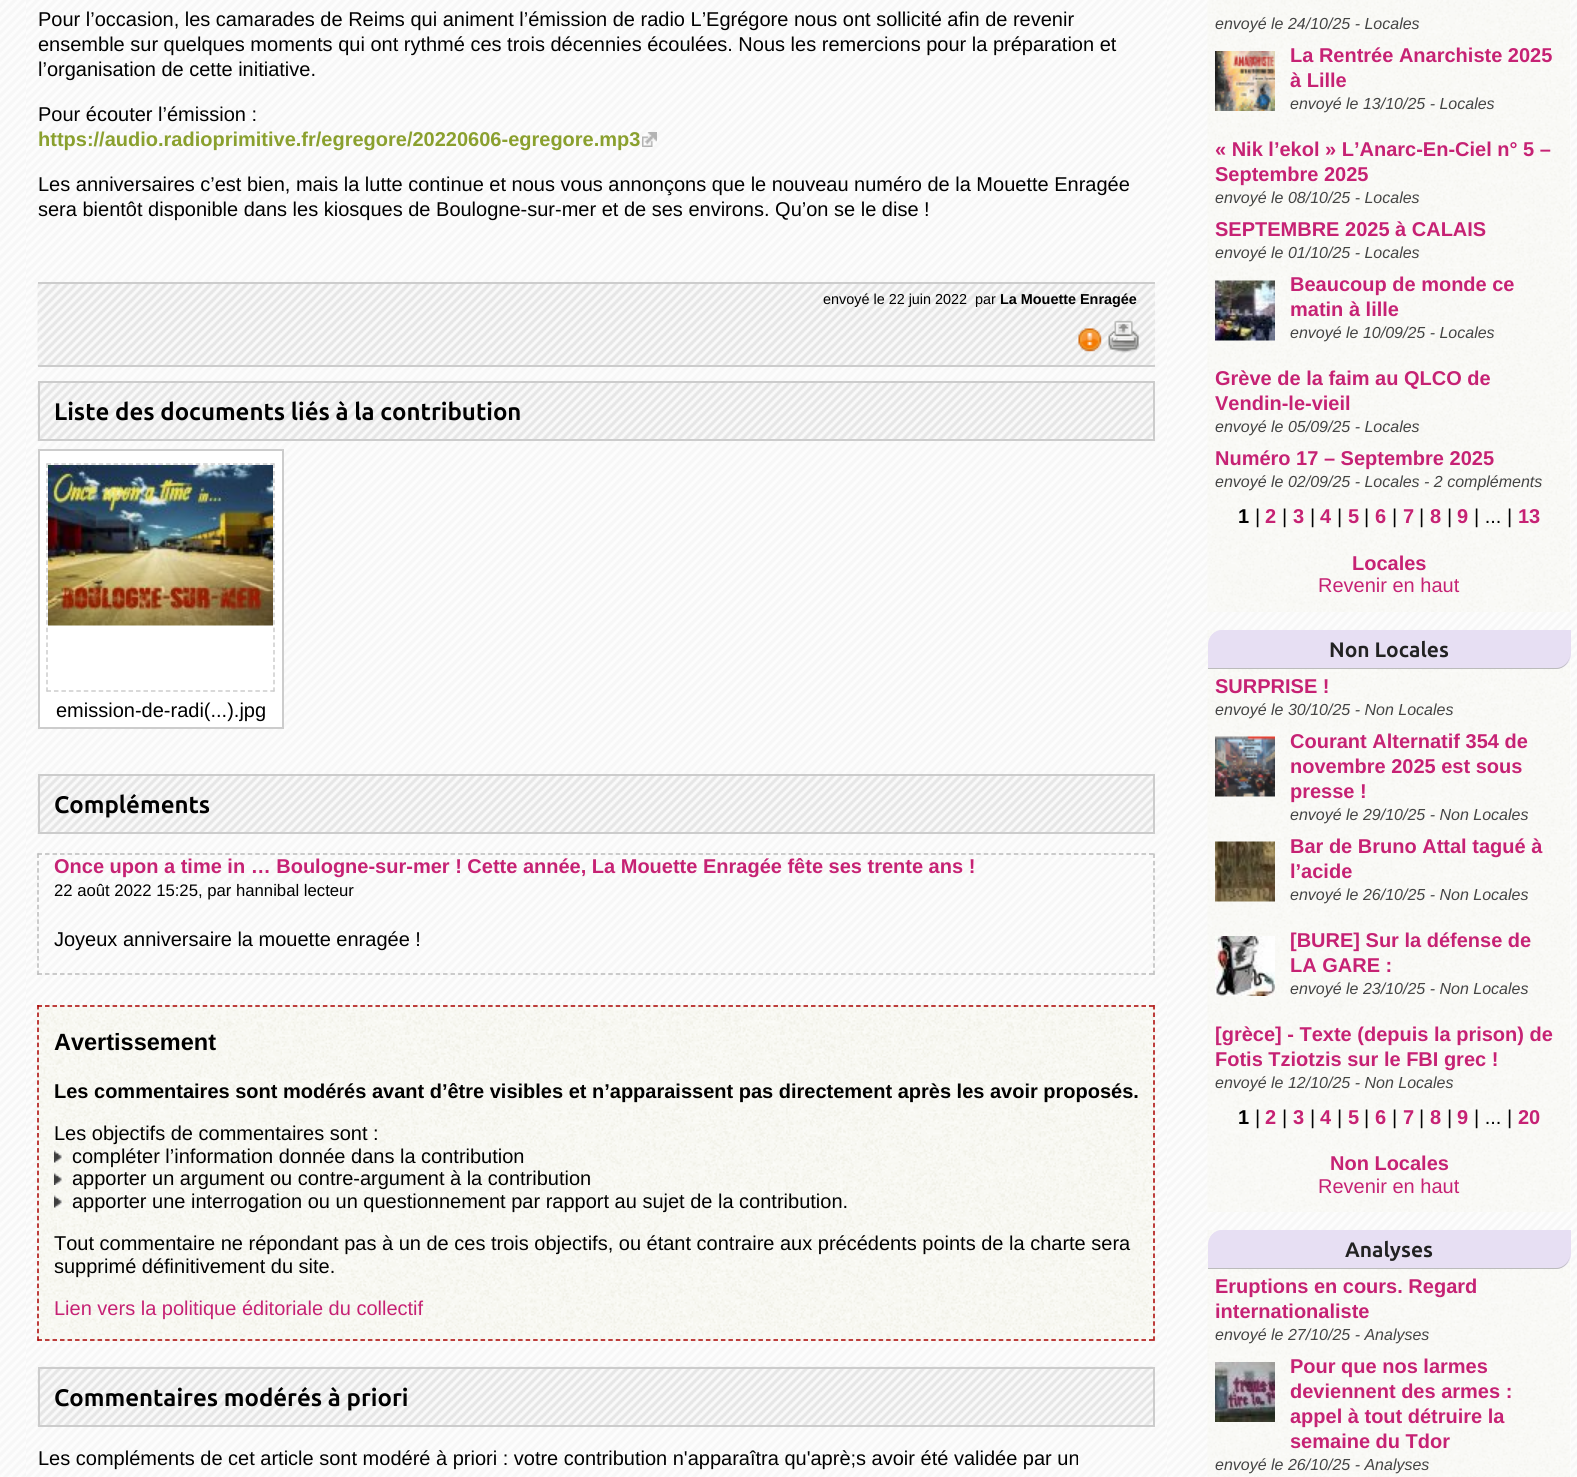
import math
import cairo



def draw_image(context, path, x, y, w, h):
    context.save()
    context.set_source_surface(cairo.ImageSurface.create_from_png(path), x, y)
    context.rectangle(x, y, w, h)
    context.fill()
    context.restore()


def draw(context):
    context.set_source_rgb(1, 1, 1)
    context.paint()
    draw_image(context, "images/1.png", 0, 0, 1577, 1477)
    draw_image(context, "images/2.png", 26, 0, 1141, 1477)
    draw_image(context, "images/3.png", 642, 132, 15, 15)
    draw_image(context, "images/4.png", 37, 282, 1118, 84)
    context.set_source_rgb(204 / 255, 204 / 255, 204 / 255)
    context.rectangle(38, 282, 1117, 2)
    context.fill()
    context.rectangle(38, 365, 1117, 2)
    context.fill()
    draw_image(context, "images/5.png", 1078, 328, 24, 24)
    draw_image(context, "images/6.png", 1108, 320, 31, 33)
    draw_image(context, "images/7.png", 37, 381, 1116, 60)
    context.rectangle(39, 382, 1115, 58)
    context.stroke()
    context.set_source_rgb(1, 1, 1)
    context.rectangle(39, 450, 244, 278)
    context.fill_preserve()
    context.set_source_rgb(204 / 255, 204 / 255, 204 / 255)
    context.stroke()
    context.new_path()
    context.move_to(46.5, 464)
    context.line_to(274.5, 464)
    context.set_line_width(1.5)
    context.set_dash([4.5, 2.96])
    context.stroke()
    context.new_path()
    context.move_to(274, 463.5)
    context.line_to(274, 691.5)
    context.stroke()
    context.new_path()
    context.move_to(46.5, 691)
    context.line_to(274.5, 691)
    context.stroke()
    context.new_path()
    context.move_to(47, 463.5)
    context.line_to(47, 691.5)
    context.stroke()
    draw_image(context, "images/8.png", 48, 465, 225, 161)
    draw_image(context, "images/9.png", 37, 774, 1116, 60)
    context.rectangle(39, 775, 1115, 58)
    context.set_line_width(2)
    context.set_dash([])
    context.stroke()
    context.new_path()
    context.move_to(37.5, 854)
    context.line_to(1155, 854)
    context.set_source_rgb(187 / 255, 187 / 255, 187 / 255)
    context.set_line_width(1.5)
    context.set_dash([4.5, 3.01])
    context.stroke()
    context.new_path()
    context.move_to(1154, 853.5)
    context.line_to(1154, 975)
    context.set_dash([4.5, 2.82])
    context.stroke()
    context.new_path()
    context.move_to(37.5, 974)
    context.line_to(1155, 974)
    context.set_dash([4.5, 3.01])
    context.stroke()
    context.new_path()
    context.move_to(38, 853.5)
    context.line_to(38, 975)
    context.set_dash([4.5, 2.82])
    context.stroke()
    draw_image(context, "images/10.png", 37, 1005, 1118, 336)
    context.new_path()
    context.move_to(37.5, 1006)
    context.line_to(1155, 1006)
    context.set_source_rgb(170 / 255, 0, 0)
    context.set_dash([4.5, 3.01])
    context.stroke()
    context.new_path()
    context.move_to(1154, 1005)
    context.line_to(1154, 1341)
    context.set_dash([4.5, 3.03])
    context.stroke()
    context.new_path()
    context.move_to(37.5, 1340)
    context.line_to(1155, 1340)
    context.set_dash([4.5, 3.01])
    context.stroke()
    context.new_path()
    context.move_to(38, 1005)
    context.line_to(38, 1341)
    context.set_dash([4.5, 3.03])
    context.stroke()
    draw_image(context, "images/11.png", 54, 1150, 8, 13)
    draw_image(context, "images/12.png", 54, 1172, 8, 13)
    draw_image(context, "images/13.png", 54, 1195, 8, 13)
    draw_image(context, "images/14.png", 37, 1366, 1118, 61)
    context.rectangle(39, 1368, 1115, 58)
    context.set_source_rgb(204 / 255, 204 / 255, 204 / 255)
    context.set_line_width(2)
    context.set_dash([])
    context.stroke()
    context.set_source_rgb(1, 1, 1)
    context.rectangle(1570, 0, 1, 612)
    context.fill()
    draw_image(context, "images/15.png", 1207, 0, 364, 612)
    draw_image(context, "images/16.png", 1215, 51, 60, 60)
    draw_image(context, "images/17.png", 1215, 280, 60, 61)
    context.rectangle(1570, 654, 1, 558)
    context.fill()
    draw_image(context, "images/18.png", 1207, 630, 364, 582)
    context.set_source_rgb(231 / 255, 223 / 255, 243 / 255)
    context.new_path()
    context.move_to(1223, 630)
    context.line_to(1571, 630)
    context.line_to(1571, 654)
    context.curve_to(1571, 662.5, 1564.5, 669, 1556, 669)
    context.line_to(1208, 669)
    context.line_to(1208, 645)
    context.curve_to(1208, 636.5, 1214.5, 630, 1223, 630)
    context.close_path()
    context.fill()
    context.new_path()
    context.move_to(1222, 630)
    context.curve_to(1214, 630, 1208, 637, 1208, 645)
    context.curve_to(1208, 638, 1214, 632, 1222, 632)
    context.line_to(1570, 632)
    context.line_to(1570, 630)
    context.close_path()
    context.fill()
    context.set_source_rgb(187 / 255, 187 / 255, 187 / 255)
    context.new_path()
    context.move_to(1556, 669)
    context.curve_to(1564, 669, 1570, 662, 1570, 654)
    context.curve_to(1570, 661, 1564, 668, 1556, 668)
    context.line_to(1208, 668)
    context.line_to(1208, 669)
    context.close_path()
    context.fill()
    draw_image(context, "images/19.png", 1215, 736, 60, 61)
    draw_image(context, "images/20.png", 1215, 841, 60, 61)
    draw_image(context, "images/21.png", 1215, 936, 60, 60)
    context.set_source_rgb(1, 1, 1)
    context.rectangle(1570, 1254, 1, 223)
    context.fill()
    draw_image(context, "images/22.png", 1207, 1230, 364, 247)
    context.set_source_rgb(231 / 255, 223 / 255, 243 / 255)
    context.new_path()
    context.move_to(1223, 1230)
    context.line_to(1571, 1230)
    context.line_to(1571, 1254)
    context.curve_to(1571, 1262.5, 1564.5, 1269, 1556, 1269)
    context.line_to(1208, 1269)
    context.line_to(1208, 1245)
    context.curve_to(1208, 1236.5, 1214.5, 1230, 1223, 1230)
    context.close_path()
    context.fill()
    context.new_path()
    context.move_to(1222, 1230)
    context.curve_to(1214, 1230, 1208, 1237, 1208, 1245)
    context.curve_to(1208, 1238, 1214, 1232, 1222, 1232)
    context.line_to(1570, 1232)
    context.line_to(1570, 1230)
    context.close_path()
    context.fill()
    context.set_source_rgb(187 / 255, 187 / 255, 187 / 255)
    context.new_path()
    context.move_to(1556, 1269)
    context.curve_to(1564, 1269, 1570, 1262, 1570, 1254)
    context.curve_to(1570, 1261, 1564, 1268, 1556, 1268)
    context.line_to(1208, 1268)
    context.line_to(1208, 1269)
    context.close_path()
    context.fill()
    draw_image(context, "images/23.png", 1215, 1362, 60, 60)
    context.select_font_face("Liberation Sans")
    context.set_font_size(20)
    context.set_source_rgb(0, 0, 0)
    context.move_to(38, 26)
    context.show_text("Pour l’occasion, les camarades de Reims qui animent l’émission de radio L’Egrégore nous ont sollicité afin de revenir")
    context.move_to(38, 51)
    context.show_text("ensemble sur quelques moments qui ont rythmé ces trois décennies écoulées. Nous les remercions pour la préparation et")
    context.move_to(38, 76)
    context.show_text("l’organisation de cette initiative.")
    context.move_to(38, 121)
    context.show_text("Pour écouter l’émission :")
    context.select_font_face("Liberation Sans", cairo.FontSlant.NORMAL, cairo.FontWeight.BOLD)
    context.set_source_rgb(138 / 255, 160 / 255, 46 / 255)
    context.move_to(38, 146)
    context.show_text("https://audio.radioprimitive.fr/egregore/20220606-egregore.mp3")
    context.select_font_face("Liberation Sans")
    context.set_source_rgb(0, 0, 0)
    context.move_to(38, 191)
    context.show_text("Les anniversaires c’est bien, mais la lutte continue et nous vous annonçons que le nouveau numéro de la Mouette Enragée")
    context.move_to(38, 216)
    context.show_text("sera bientôt disponible dans les kiosques de Boulogne-sur-mer et de ses environs. Qu’on se le dise !")
    context.set_font_size(14.4)
    context.move_to(823, 304)
    context.show_text("envoyé le 22 juin 2022")
    context.move_to(975, 304)
    context.show_text("par")
    context.select_font_face("Liberation Sans", cairo.FontSlant.NORMAL, cairo.FontWeight.BOLD)
    context.move_to(1000, 304)
    context.show_text("La Mouette Enragée")
    context.select_font_face("Ubuntu", cairo.FontSlant.NORMAL, cairo.FontWeight.BOLD)
    context.set_font_size(24)
    context.move_to(54, 420)
    context.show_text("Liste des documents liés à la contribution")
    context.select_font_face("Liberation Sans")
    context.set_font_size(20)
    context.move_to(56, 717)
    context.show_text("emission-de-radi(...).jpg")
    context.select_font_face("Ubuntu", cairo.FontSlant.NORMAL, cairo.FontWeight.BOLD)
    context.set_font_size(24)
    context.move_to(54, 813)
    context.show_text("Compléments")
    context.select_font_face("Liberation Sans", cairo.FontSlant.NORMAL, cairo.FontWeight.BOLD)
    context.set_font_size(20)
    context.set_source_rgb(198 / 255, 34 / 255, 116 / 255)
    context.move_to(54, 873)
    context.show_text("Once upon a time in … Boulogne-sur-mer ! Cette année, La Mouette Enragée fête ses trente ans !")
    context.select_font_face("Liberation Sans")
    context.set_font_size(16.7)
    context.set_source_rgb(0, 0, 0)
    context.move_to(54, 896)
    context.show_text("22 août 2022 15:25, par hannibal lecteur")
    context.set_font_size(20)
    context.move_to(54, 946)
    context.show_text("Joyeux anniversaire la mouette enragée !")
    context.select_font_face("Liberation Sans", cairo.FontSlant.NORMAL, cairo.FontWeight.BOLD)
    context.set_font_size(23.5)
    context.move_to(54, 1050)
    context.show_text("Avertissement")
    context.set_font_size(20)
    context.move_to(54, 1098)
    context.show_text("Les commentaires sont modérés avant d’être visibles et n’apparaissent pas directement après les avoir proposés.")
    context.select_font_face("Liberation Sans")
    context.move_to(54, 1140)
    context.show_text("Les objectifs de commentaires sont :")
    context.move_to(72, 1163)
    context.show_text("compléter l’information donnée dans la contribution")
    context.move_to(72, 1185)
    context.show_text("apporter un argument ou contre-argument à la contribution")
    context.move_to(72, 1208)
    context.show_text("apporter une interrogation ou un questionnement par rapport au sujet de la contribution.")
    context.move_to(54, 1250)
    context.show_text("Tout commentaire ne répondant pas à un de ces trois objectifs, ou étant contraire aux précédents points de la charte sera")
    context.move_to(54, 1273)
    context.show_text("supprimé définitivement du site.")
    context.set_source_rgb(198 / 255, 34 / 255, 116 / 255)
    context.move_to(54, 1315)
    context.show_text("Lien vers la politique éditoriale du collectif")
    context.select_font_face("Ubuntu", cairo.FontSlant.NORMAL, cairo.FontWeight.BOLD)
    context.set_font_size(24)
    context.set_source_rgb(0, 0, 0)
    context.move_to(54, 1406)
    context.show_text("Commentaires modérés à priori")
    context.select_font_face("Liberation Sans")
    context.set_font_size(20)
    context.move_to(38, 1465)
    context.show_text("Les compléments de cet article sont modéré à priori : votre contribution n'apparaîtra qu'aprè;s avoir été validée par un")
    context.select_font_face("Liberation Sans", cairo.FontSlant.ITALIC)
    context.set_font_size(16)
    context.set_source_rgb(68 / 255, 68 / 255, 68 / 255)
    context.move_to(1215, 29)
    context.show_text("envoyé le 24/10/25 - Locales")
    context.select_font_face("Liberation Sans", cairo.FontSlant.NORMAL, cairo.FontWeight.BOLD)
    context.set_font_size(20)
    context.set_source_rgb(198 / 255, 34 / 255, 116 / 255)
    context.move_to(1290, 62)
    context.show_text("La Rentrée Anarchiste 2025")
    context.move_to(1290, 87)
    context.show_text("à Lille")
    context.select_font_face("Liberation Sans", cairo.FontSlant.ITALIC)
    context.set_font_size(16)
    context.set_source_rgb(68 / 255, 68 / 255, 68 / 255)
    context.move_to(1290, 109)
    context.show_text("envoyé le 13/10/25 - Locales")
    context.select_font_face("Liberation Sans", cairo.FontSlant.NORMAL, cairo.FontWeight.BOLD)
    context.set_font_size(20)
    context.set_source_rgb(198 / 255, 34 / 255, 116 / 255)
    context.move_to(1215, 156)
    context.show_text("« Nik l’ekol » L’Anarc-En-Ciel n° 5 –")
    context.move_to(1215, 181)
    context.show_text("Septembre 2025")
    context.select_font_face("Liberation Sans", cairo.FontSlant.ITALIC)
    context.set_font_size(16)
    context.set_source_rgb(68 / 255, 68 / 255, 68 / 255)
    context.move_to(1215, 203)
    context.show_text("envoyé le 08/10/25 - Locales")
    context.select_font_face("Liberation Sans", cairo.FontSlant.NORMAL, cairo.FontWeight.BOLD)
    context.set_font_size(20)
    context.set_source_rgb(198 / 255, 34 / 255, 116 / 255)
    context.move_to(1215, 236)
    context.show_text("SEPTEMBRE 2025 à CALAIS")
    context.select_font_face("Liberation Sans", cairo.FontSlant.ITALIC)
    context.set_font_size(16)
    context.set_source_rgb(68 / 255, 68 / 255, 68 / 255)
    context.move_to(1215, 258)
    context.show_text("envoyé le 01/10/25 - Locales")
    context.select_font_face("Liberation Sans", cairo.FontSlant.NORMAL, cairo.FontWeight.BOLD)
    context.set_font_size(20)
    context.set_source_rgb(198 / 255, 34 / 255, 116 / 255)
    context.move_to(1290, 291)
    context.show_text("Beaucoup de monde ce")
    context.move_to(1290, 316)
    context.show_text("matin à lille")
    context.select_font_face("Liberation Sans", cairo.FontSlant.ITALIC)
    context.set_font_size(16)
    context.set_source_rgb(68 / 255, 68 / 255, 68 / 255)
    context.move_to(1290, 338)
    context.show_text("envoyé le 10/09/25 - Locales")
    context.select_font_face("Liberation Sans", cairo.FontSlant.NORMAL, cairo.FontWeight.BOLD)
    context.set_font_size(20)
    context.set_source_rgb(198 / 255, 34 / 255, 116 / 255)
    context.move_to(1215, 385)
    context.show_text("Grève de la faim au QLCO de")
    context.move_to(1215, 410)
    context.show_text("Vendin-le-vieil")
    context.select_font_face("Liberation Sans", cairo.FontSlant.ITALIC)
    context.set_font_size(16)
    context.set_source_rgb(68 / 255, 68 / 255, 68 / 255)
    context.move_to(1215, 432)
    context.show_text("envoyé le 05/09/25 - Locales")
    context.select_font_face("Liberation Sans", cairo.FontSlant.NORMAL, cairo.FontWeight.BOLD)
    context.set_font_size(20)
    context.set_source_rgb(198 / 255, 34 / 255, 116 / 255)
    context.move_to(1215, 465)
    context.show_text("Numéro 17 – Septembre 2025")
    context.select_font_face("Liberation Sans", cairo.FontSlant.ITALIC)
    context.set_font_size(16)
    context.set_source_rgb(68 / 255, 68 / 255, 68 / 255)
    context.move_to(1215, 487)
    context.show_text("envoyé le 02/09/25 - Locales - 2 compléments")
    context.select_font_face("Liberation Sans", cairo.FontSlant.NORMAL, cairo.FontWeight.BOLD)
    context.set_font_size(20)
    context.set_source_rgb(0, 0, 0)
    context.move_to(1238, 523)
    context.show_text("1")
    context.select_font_face("Liberation Sans")
    context.move_to(1255, 523)
    context.show_text("|")
    context.select_font_face("Liberation Sans", cairo.FontSlant.NORMAL, cairo.FontWeight.BOLD)
    context.set_source_rgb(198 / 255, 34 / 255, 116 / 255)
    context.move_to(1265, 523)
    context.show_text("2")
    context.select_font_face("Liberation Sans")
    context.set_source_rgb(0, 0, 0)
    context.move_to(1282, 523)
    context.show_text("|")
    context.select_font_face("Liberation Sans", cairo.FontSlant.NORMAL, cairo.FontWeight.BOLD)
    context.set_source_rgb(198 / 255, 34 / 255, 116 / 255)
    context.move_to(1293, 523)
    context.show_text("3")
    context.select_font_face("Liberation Sans")
    context.set_source_rgb(0, 0, 0)
    context.move_to(1310, 523)
    context.show_text("|")
    context.select_font_face("Liberation Sans", cairo.FontSlant.NORMAL, cairo.FontWeight.BOLD)
    context.set_source_rgb(198 / 255, 34 / 255, 116 / 255)
    context.move_to(1320, 523)
    context.show_text("4")
    context.select_font_face("Liberation Sans")
    context.set_source_rgb(0, 0, 0)
    context.move_to(1337, 523)
    context.show_text("|")
    context.select_font_face("Liberation Sans", cairo.FontSlant.NORMAL, cairo.FontWeight.BOLD)
    context.set_source_rgb(198 / 255, 34 / 255, 116 / 255)
    context.move_to(1348, 523)
    context.show_text("5")
    context.select_font_face("Liberation Sans")
    context.set_source_rgb(0, 0, 0)
    context.move_to(1364, 523)
    context.show_text("|")
    context.select_font_face("Liberation Sans", cairo.FontSlant.NORMAL, cairo.FontWeight.BOLD)
    context.set_source_rgb(198 / 255, 34 / 255, 116 / 255)
    context.move_to(1375, 523)
    context.show_text("6")
    context.select_font_face("Liberation Sans")
    context.set_source_rgb(0, 0, 0)
    context.move_to(1392, 523)
    context.show_text("|")
    context.select_font_face("Liberation Sans", cairo.FontSlant.NORMAL, cairo.FontWeight.BOLD)
    context.set_source_rgb(198 / 255, 34 / 255, 116 / 255)
    context.move_to(1403, 523)
    context.show_text("7")
    context.select_font_face("Liberation Sans")
    context.set_source_rgb(0, 0, 0)
    context.move_to(1419, 523)
    context.show_text("|")
    context.select_font_face("Liberation Sans", cairo.FontSlant.NORMAL, cairo.FontWeight.BOLD)
    context.set_source_rgb(198 / 255, 34 / 255, 116 / 255)
    context.move_to(1430, 523)
    context.show_text("8")
    context.select_font_face("Liberation Sans")
    context.set_source_rgb(0, 0, 0)
    context.move_to(1447, 523)
    context.show_text("|")
    context.select_font_face("Liberation Sans", cairo.FontSlant.NORMAL, cairo.FontWeight.BOLD)
    context.set_source_rgb(198 / 255, 34 / 255, 116 / 255)
    context.move_to(1457, 523)
    context.show_text("9")
    context.select_font_face("Liberation Sans")
    context.set_source_rgb(0, 0, 0)
    context.move_to(1474, 523)
    context.show_text("| ... |")
    context.select_font_face("Liberation Sans", cairo.FontSlant.NORMAL, cairo.FontWeight.BOLD)
    context.set_source_rgb(198 / 255, 34 / 255, 116 / 255)
    context.move_to(1518, 523)
    context.show_text("13")
    context.move_to(1352, 570)
    context.show_text("Locales")
    context.select_font_face("Liberation Sans")
    context.move_to(1318, 592)
    context.show_text("Revenir en haut")
    context.select_font_face("Ubuntu", cairo.FontSlant.NORMAL, cairo.FontWeight.BOLD)
    context.set_font_size(21)
    context.set_source_rgb(34 / 255, 34 / 255, 34 / 255)
    context.move_to(1329, 657)
    context.show_text("Non Locales")
    context.select_font_face("Liberation Sans", cairo.FontSlant.NORMAL, cairo.FontWeight.BOLD)
    context.set_font_size(20)
    context.set_source_rgb(198 / 255, 34 / 255, 116 / 255)
    context.move_to(1215, 693)
    context.show_text("SURPRISE !")
    context.select_font_face("Liberation Sans", cairo.FontSlant.ITALIC)
    context.set_font_size(16)
    context.set_source_rgb(68 / 255, 68 / 255, 68 / 255)
    context.move_to(1215, 715)
    context.show_text("envoyé le 30/10/25 - Non Locales")
    context.select_font_face("Liberation Sans", cairo.FontSlant.NORMAL, cairo.FontWeight.BOLD)
    context.set_font_size(20)
    context.set_source_rgb(198 / 255, 34 / 255, 116 / 255)
    context.move_to(1290, 748)
    context.show_text("Courant Alternatif 354 de")
    context.move_to(1290, 773)
    context.show_text("novembre 2025 est sous")
    context.move_to(1290, 798)
    context.show_text("presse !")
    context.select_font_face("Liberation Sans", cairo.FontSlant.ITALIC)
    context.set_font_size(16)
    context.set_source_rgb(68 / 255, 68 / 255, 68 / 255)
    context.move_to(1290, 820)
    context.show_text("envoyé le 29/10/25 - Non Locales")
    context.select_font_face("Liberation Sans", cairo.FontSlant.NORMAL, cairo.FontWeight.BOLD)
    context.set_font_size(20)
    context.set_source_rgb(198 / 255, 34 / 255, 116 / 255)
    context.move_to(1290, 853)
    context.show_text("Bar de Bruno Attal tagué à")
    context.move_to(1290, 878)
    context.show_text("l’acide")
    context.select_font_face("Liberation Sans", cairo.FontSlant.ITALIC)
    context.set_font_size(16)
    context.set_source_rgb(68 / 255, 68 / 255, 68 / 255)
    context.move_to(1290, 900)
    context.show_text("envoyé le 26/10/25 - Non Locales")
    context.select_font_face("Liberation Sans", cairo.FontSlant.NORMAL, cairo.FontWeight.BOLD)
    context.set_font_size(20)
    context.set_source_rgb(198 / 255, 34 / 255, 116 / 255)
    context.move_to(1290, 947)
    context.show_text("[BURE] Sur la défense de")
    context.move_to(1290, 972)
    context.show_text("LA GARE :")
    context.select_font_face("Liberation Sans", cairo.FontSlant.ITALIC)
    context.set_font_size(16)
    context.set_source_rgb(68 / 255, 68 / 255, 68 / 255)
    context.move_to(1290, 994)
    context.show_text("envoyé le 23/10/25 - Non Locales")
    context.select_font_face("Liberation Sans", cairo.FontSlant.NORMAL, cairo.FontWeight.BOLD)
    context.set_font_size(20)
    context.set_source_rgb(198 / 255, 34 / 255, 116 / 255)
    context.move_to(1215, 1041)
    context.show_text("[grèce] - Texte (depuis la prison) de")
    context.move_to(1215, 1066)
    context.show_text("Fotis Tziotzis sur le FBI grec !")
    context.select_font_face("Liberation Sans", cairo.FontSlant.ITALIC)
    context.set_font_size(16)
    context.set_source_rgb(68 / 255, 68 / 255, 68 / 255)
    context.move_to(1215, 1088)
    context.show_text("envoyé le 12/10/25 - Non Locales")
    context.select_font_face("Liberation Sans", cairo.FontSlant.NORMAL, cairo.FontWeight.BOLD)
    context.set_font_size(20)
    context.set_source_rgb(0, 0, 0)
    context.move_to(1238, 1124)
    context.show_text("1")
    context.select_font_face("Liberation Sans")
    context.move_to(1255, 1124)
    context.show_text("|")
    context.select_font_face("Liberation Sans", cairo.FontSlant.NORMAL, cairo.FontWeight.BOLD)
    context.set_source_rgb(198 / 255, 34 / 255, 116 / 255)
    context.move_to(1265, 1124)
    context.show_text("2")
    context.select_font_face("Liberation Sans")
    context.set_source_rgb(0, 0, 0)
    context.move_to(1282, 1124)
    context.show_text("|")
    context.select_font_face("Liberation Sans", cairo.FontSlant.NORMAL, cairo.FontWeight.BOLD)
    context.set_source_rgb(198 / 255, 34 / 255, 116 / 255)
    context.move_to(1293, 1124)
    context.show_text("3")
    context.select_font_face("Liberation Sans")
    context.set_source_rgb(0, 0, 0)
    context.move_to(1310, 1124)
    context.show_text("|")
    context.select_font_face("Liberation Sans", cairo.FontSlant.NORMAL, cairo.FontWeight.BOLD)
    context.set_source_rgb(198 / 255, 34 / 255, 116 / 255)
    context.move_to(1320, 1124)
    context.show_text("4")
    context.select_font_face("Liberation Sans")
    context.set_source_rgb(0, 0, 0)
    context.move_to(1337, 1124)
    context.show_text("|")
    context.select_font_face("Liberation Sans", cairo.FontSlant.NORMAL, cairo.FontWeight.BOLD)
    context.set_source_rgb(198 / 255, 34 / 255, 116 / 255)
    context.move_to(1348, 1124)
    context.show_text("5")
    context.select_font_face("Liberation Sans")
    context.set_source_rgb(0, 0, 0)
    context.move_to(1364, 1124)
    context.show_text("|")
    context.select_font_face("Liberation Sans", cairo.FontSlant.NORMAL, cairo.FontWeight.BOLD)
    context.set_source_rgb(198 / 255, 34 / 255, 116 / 255)
    context.move_to(1375, 1124)
    context.show_text("6")
    context.select_font_face("Liberation Sans")
    context.set_source_rgb(0, 0, 0)
    context.move_to(1392, 1124)
    context.show_text("|")
    context.select_font_face("Liberation Sans", cairo.FontSlant.NORMAL, cairo.FontWeight.BOLD)
    context.set_source_rgb(198 / 255, 34 / 255, 116 / 255)
    context.move_to(1403, 1124)
    context.show_text("7")
    context.select_font_face("Liberation Sans")
    context.set_source_rgb(0, 0, 0)
    context.move_to(1419, 1124)
    context.show_text("|")
    context.select_font_face("Liberation Sans", cairo.FontSlant.NORMAL, cairo.FontWeight.BOLD)
    context.set_source_rgb(198 / 255, 34 / 255, 116 / 255)
    context.move_to(1430, 1124)
    context.show_text("8")
    context.select_font_face("Liberation Sans")
    context.set_source_rgb(0, 0, 0)
    context.move_to(1447, 1124)
    context.show_text("|")
    context.select_font_face("Liberation Sans", cairo.FontSlant.NORMAL, cairo.FontWeight.BOLD)
    context.set_source_rgb(198 / 255, 34 / 255, 116 / 255)
    context.move_to(1457, 1124)
    context.show_text("9")
    context.select_font_face("Liberation Sans")
    context.set_source_rgb(0, 0, 0)
    context.move_to(1474, 1124)
    context.show_text("| ... |")
    context.select_font_face("Liberation Sans", cairo.FontSlant.NORMAL, cairo.FontWeight.BOLD)
    context.set_source_rgb(198 / 255, 34 / 255, 116 / 255)
    context.move_to(1518, 1124)
    context.show_text("20")
    context.move_to(1330, 1170)
    context.show_text("Non Locales")
    context.select_font_face("Liberation Sans")
    context.move_to(1318, 1193)
    context.show_text("Revenir en haut")
    context.select_font_face("Ubuntu", cairo.FontSlant.NORMAL, cairo.FontWeight.BOLD)
    context.set_font_size(21)
    context.set_source_rgb(34 / 255, 34 / 255, 34 / 255)
    context.move_to(1345, 1257)
    context.show_text("Analyses")
    context.select_font_face("Liberation Sans", cairo.FontSlant.NORMAL, cairo.FontWeight.BOLD)
    context.set_font_size(20)
    context.set_source_rgb(198 / 255, 34 / 255, 116 / 255)
    context.move_to(1215, 1293)
    context.show_text("Eruptions en cours. Regard")
    context.move_to(1215, 1318)
    context.show_text("internationaliste")
    context.select_font_face("Liberation Sans", cairo.FontSlant.ITALIC)
    context.set_font_size(16)
    context.set_source_rgb(68 / 255, 68 / 255, 68 / 255)
    context.move_to(1215, 1340)
    context.show_text("envoyé le 27/10/25 - Analyses")
    context.select_font_face("Liberation Sans", cairo.FontSlant.NORMAL, cairo.FontWeight.BOLD)
    context.set_font_size(20)
    context.set_source_rgb(198 / 255, 34 / 255, 116 / 255)
    context.move_to(1290, 1373)
    context.show_text("Pour que nos larmes")
    context.move_to(1290, 1398)
    context.show_text("deviennent des armes :")
    context.move_to(1290, 1423)
    context.show_text("appel à tout détruire la")
    context.move_to(1290, 1448)
    context.show_text("semaine du Tdor")
    context.select_font_face("Liberation Sans", cairo.FontSlant.ITALIC)
    context.set_font_size(16)
    context.set_source_rgb(68 / 255, 68 / 255, 68 / 255)
    context.move_to(1215, 1470)
    context.show_text("envoyé le 26/10/25 - Analyses")


surface = cairo.ImageSurface(cairo.Format.RGB24, 1577, 1477)
context = cairo.Context(surface)
options = cairo.FontOptions()
options.set_hint_metrics(cairo.HintMetrics.OFF)
options.set_hint_style(cairo.HintStyle.NONE)
context.set_font_options(options)
context.set_miter_limit(4)
draw(context)
surface.write_to_png("out.png")
